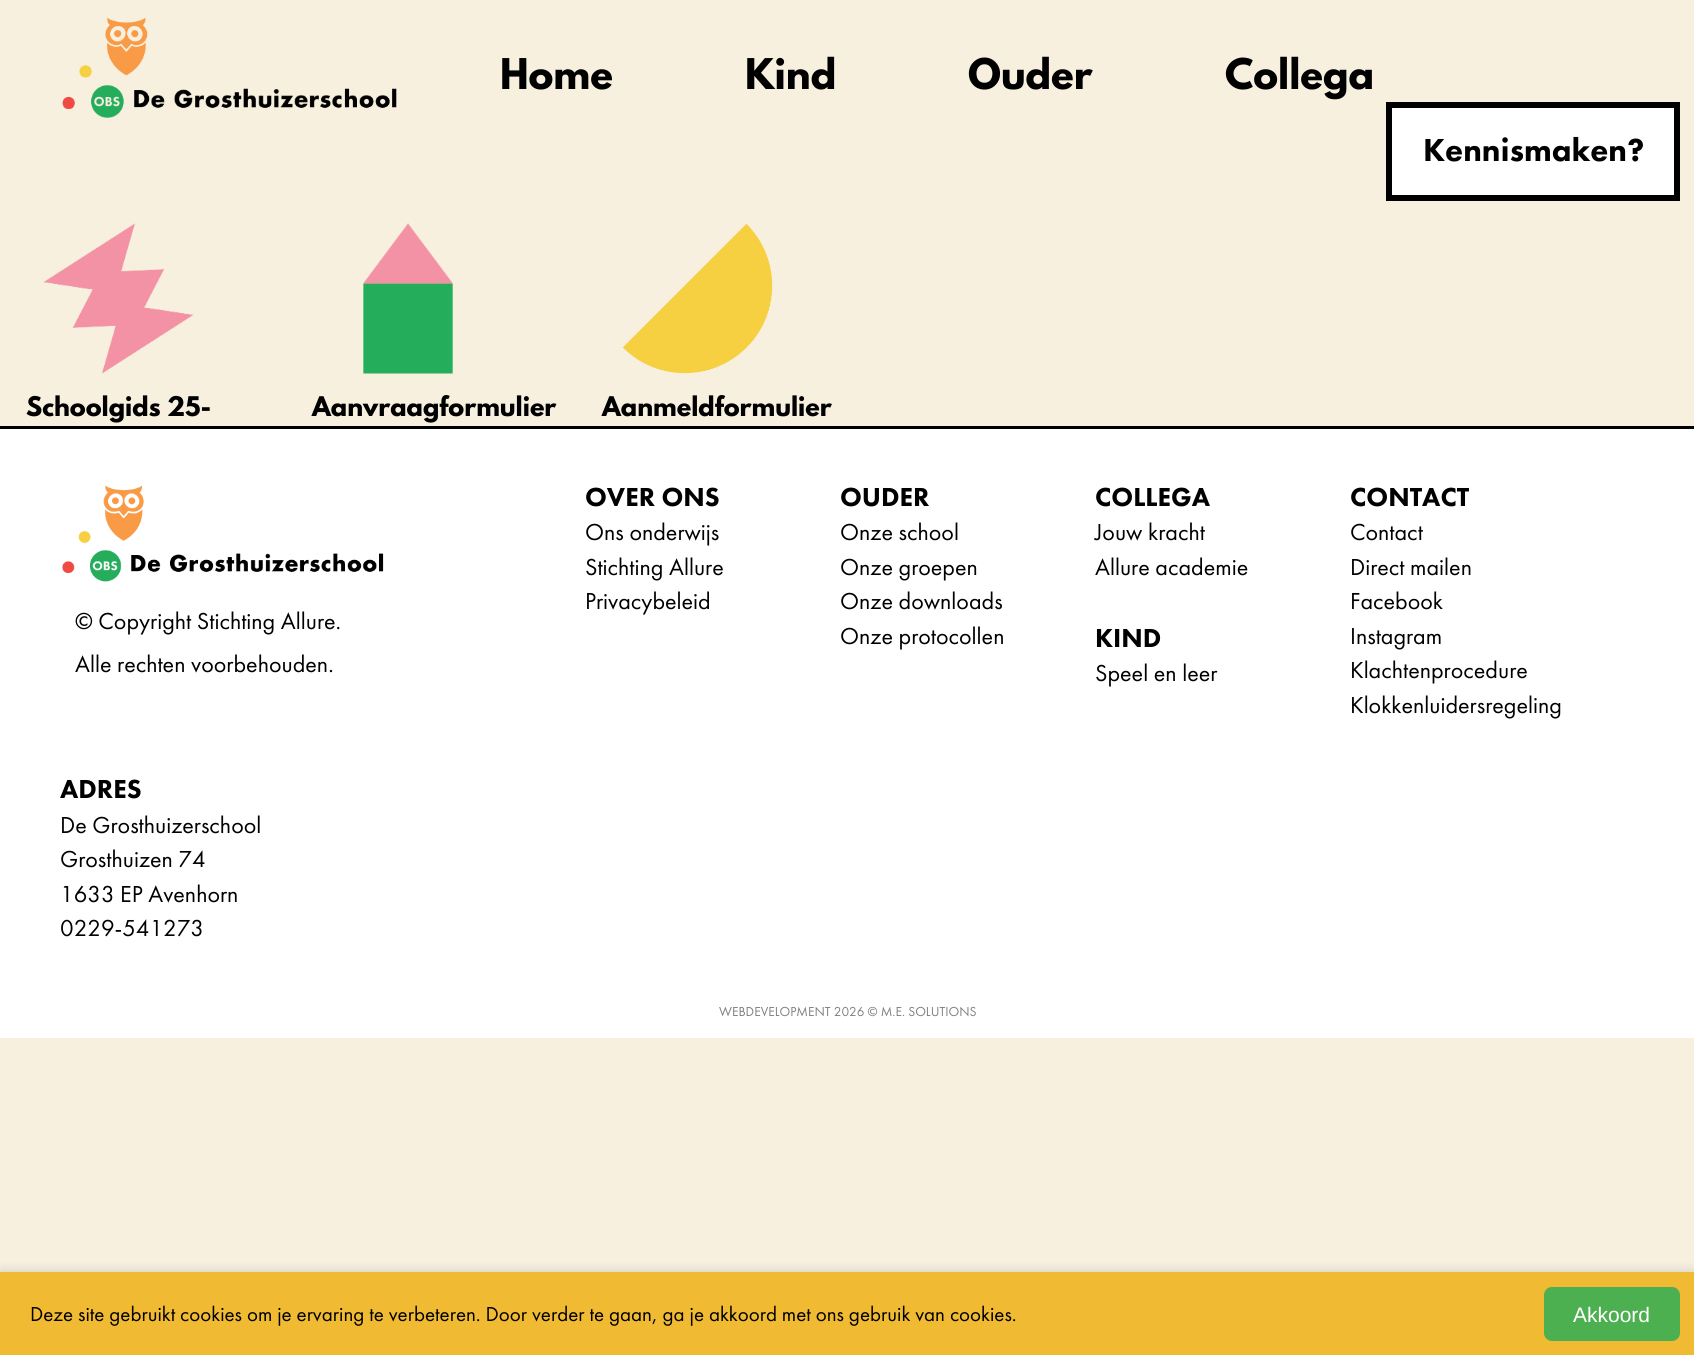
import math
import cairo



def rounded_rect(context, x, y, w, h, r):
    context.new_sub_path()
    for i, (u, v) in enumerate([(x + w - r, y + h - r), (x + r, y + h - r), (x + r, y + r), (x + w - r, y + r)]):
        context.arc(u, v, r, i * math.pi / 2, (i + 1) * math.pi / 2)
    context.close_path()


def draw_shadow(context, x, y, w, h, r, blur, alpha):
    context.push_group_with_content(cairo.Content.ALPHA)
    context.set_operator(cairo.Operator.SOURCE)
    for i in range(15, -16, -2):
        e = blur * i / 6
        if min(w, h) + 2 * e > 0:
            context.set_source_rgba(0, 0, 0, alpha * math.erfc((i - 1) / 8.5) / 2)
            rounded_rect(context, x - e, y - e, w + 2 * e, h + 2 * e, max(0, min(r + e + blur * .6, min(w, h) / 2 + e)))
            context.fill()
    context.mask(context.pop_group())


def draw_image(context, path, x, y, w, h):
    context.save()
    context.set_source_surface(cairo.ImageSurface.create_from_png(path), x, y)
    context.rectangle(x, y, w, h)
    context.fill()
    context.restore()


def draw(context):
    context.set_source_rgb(247 / 255, 240 / 255, 223 / 255)
    context.paint()
    draw_image(context, "images/1.png", 62, 17, 335, 101)
    context.set_source_rgb(1, 1, 1)
    context.rectangle(1389, 105, 288, 93)
    context.fill_preserve()
    context.set_source_rgb(0, 0, 0)
    context.set_line_width(6)
    context.stroke()
    draw_image(context, "images/2.png", 43, 223, 151, 151)
    draw_image(context, "images/3.png", 363, 223, 90, 151)
    draw_image(context, "images/4.png", 622, 223, 151, 151)
    context.set_source_rgb(1, 1, 1)
    context.rectangle(0, 429, 1694, 609)
    context.fill()
    context.set_source_rgb(0, 0, 0)
    context.rectangle(0, 426, 1694, 3)
    context.fill()
    draw_image(context, "images/5.png", 62, 485, 322, 97)
    context.set_source_rgb(0, 0, 0)
    draw_shadow(context, 0, 1269, 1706, 84, 0, 4, 0.1)
    context.set_source_rgb(241 / 255, 186 / 255, 51 / 255)
    context.rectangle(0, 1272, 1694, 83)
    context.fill()
    context.set_source_rgb(76 / 255, 175 / 255, 80 / 255)
    rounded_rect(context, 1544, 1287, 136, 54, 8)
    context.fill()
    context.select_font_face("League Spartan", cairo.FontSlant.NORMAL, cairo.FontWeight.BOLD)
    context.set_font_size(37.5)
    context.set_source_rgb(0, 0, 0)
    context.move_to(500, 89)
    context.show_text("Home")
    context.move_to(745, 89)
    context.show_text("Kind")
    context.move_to(968, 89)
    context.show_text("Ouder")
    context.move_to(1225, 89)
    context.show_text("Collega")
    context.select_font_face("Futura PT Black")
    context.set_font_size(33)
    context.move_to(1423, 161)
    context.show_text("Kennismaken?")
    context.select_font_face("League Spartan", cairo.FontSlant.NORMAL, cairo.FontWeight.BOLD)
    context.set_font_size(24)
    context.move_to(26, 416)
    context.show_text("Schoolgids 25-")
    context.move_to(312, 416)
    context.show_text("Aanvraagformulier")
    context.move_to(602, 416)
    context.show_text("Aanmeldformulier")
    context.select_font_face("Futura PT")
    context.move_to(75, 629)
    context.show_text("© Copyright Stichting Allure.")
    context.move_to(75, 672)
    context.show_text("Alle rechten voorbehouden.")
    context.select_font_face("Futura PT Black")
    context.set_font_size(27)
    context.move_to(585, 506)
    context.show_text("OVER ONS")
    context.select_font_face("Futura PT")
    context.set_font_size(24)
    context.move_to(585, 540)
    context.show_text("Ons onderwijs")
    context.move_to(585, 575)
    context.show_text("Stichting Allure")
    context.move_to(585, 609)
    context.show_text("Privacybeleid")
    context.select_font_face("Futura PT Black")
    context.set_font_size(27)
    context.move_to(840, 506)
    context.show_text("OUDER")
    context.select_font_face("Futura PT")
    context.set_font_size(24)
    context.move_to(840, 540)
    context.show_text("Onze school")
    context.move_to(840, 575)
    context.show_text("Onze groepen")
    context.move_to(840, 609)
    context.show_text("Onze downloads")
    context.move_to(840, 644)
    context.show_text("Onze protocollen")
    context.select_font_face("Futura PT Black")
    context.set_font_size(27)
    context.move_to(1095, 506)
    context.show_text("COLLEGA")
    context.select_font_face("Futura PT")
    context.set_font_size(24)
    context.move_to(1095, 540)
    context.show_text("Jouw kracht")
    context.move_to(1095, 575)
    context.show_text("Allure academie")
    context.select_font_face("Futura PT Black")
    context.set_font_size(27)
    context.move_to(1095, 647)
    context.show_text("KIND")
    context.select_font_face("Futura PT")
    context.set_font_size(24)
    context.move_to(1095, 681)
    context.show_text("Speel en leer")
    context.select_font_face("Futura PT Black")
    context.set_font_size(27)
    context.move_to(1350, 506)
    context.show_text("CONTACT")
    context.select_font_face("Futura PT")
    context.set_font_size(24)
    context.move_to(1350, 540)
    context.show_text("Contact")
    context.move_to(1350, 575)
    context.show_text("Direct mailen")
    context.move_to(1350, 609)
    context.show_text("Facebook")
    context.move_to(1350, 644)
    context.show_text("Instagram")
    context.move_to(1350, 678)
    context.show_text("Klachtenprocedure")
    context.move_to(1350, 713)
    context.show_text("Klokkenluidersregeling")
    context.select_font_face("Futura PT Black")
    context.set_font_size(27)
    context.move_to(60, 798)
    context.show_text("ADRES")
    context.select_font_face("Futura PT")
    context.set_font_size(24)
    context.move_to(60, 833)
    context.show_text("De Grosthuizerschool")
    context.move_to(60, 867)
    context.show_text("Grosthuizen 74")
    context.move_to(60, 902)
    context.show_text("1633 EP Avenhorn")
    context.move_to(60, 936)
    context.show_text("0229-541273")
    context.set_font_size(13.5)
    context.set_source_rgb(128 / 255, 128 / 255, 128 / 255)
    context.move_to(719, 1016)
    context.show_text("WEBDEVELOPMENT 2026 © M.E. SOLUTIONS")
    context.set_font_size(21)
    context.set_source_rgb(0, 0, 0)
    context.move_to(30, 1321)
    context.show_text("Deze site gebruikt cookies om je ervaring te verbeteren. Door verder te gaan, ga je akkoord met ons gebruik van cookies.")
    context.select_font_face("Liberation Sans")
    context.set_source_rgb(1, 1, 1)
    context.move_to(1573, 1322)
    context.show_text("Akkoord")


surface = cairo.ImageSurface(cairo.Format.RGB24, 1694, 1355)
context = cairo.Context(surface)
options = cairo.FontOptions()
options.set_hint_metrics(cairo.HintMetrics.OFF)
options.set_hint_style(cairo.HintStyle.NONE)
context.set_font_options(options)
context.set_miter_limit(4)
draw(context)
surface.write_to_png("out.png")
